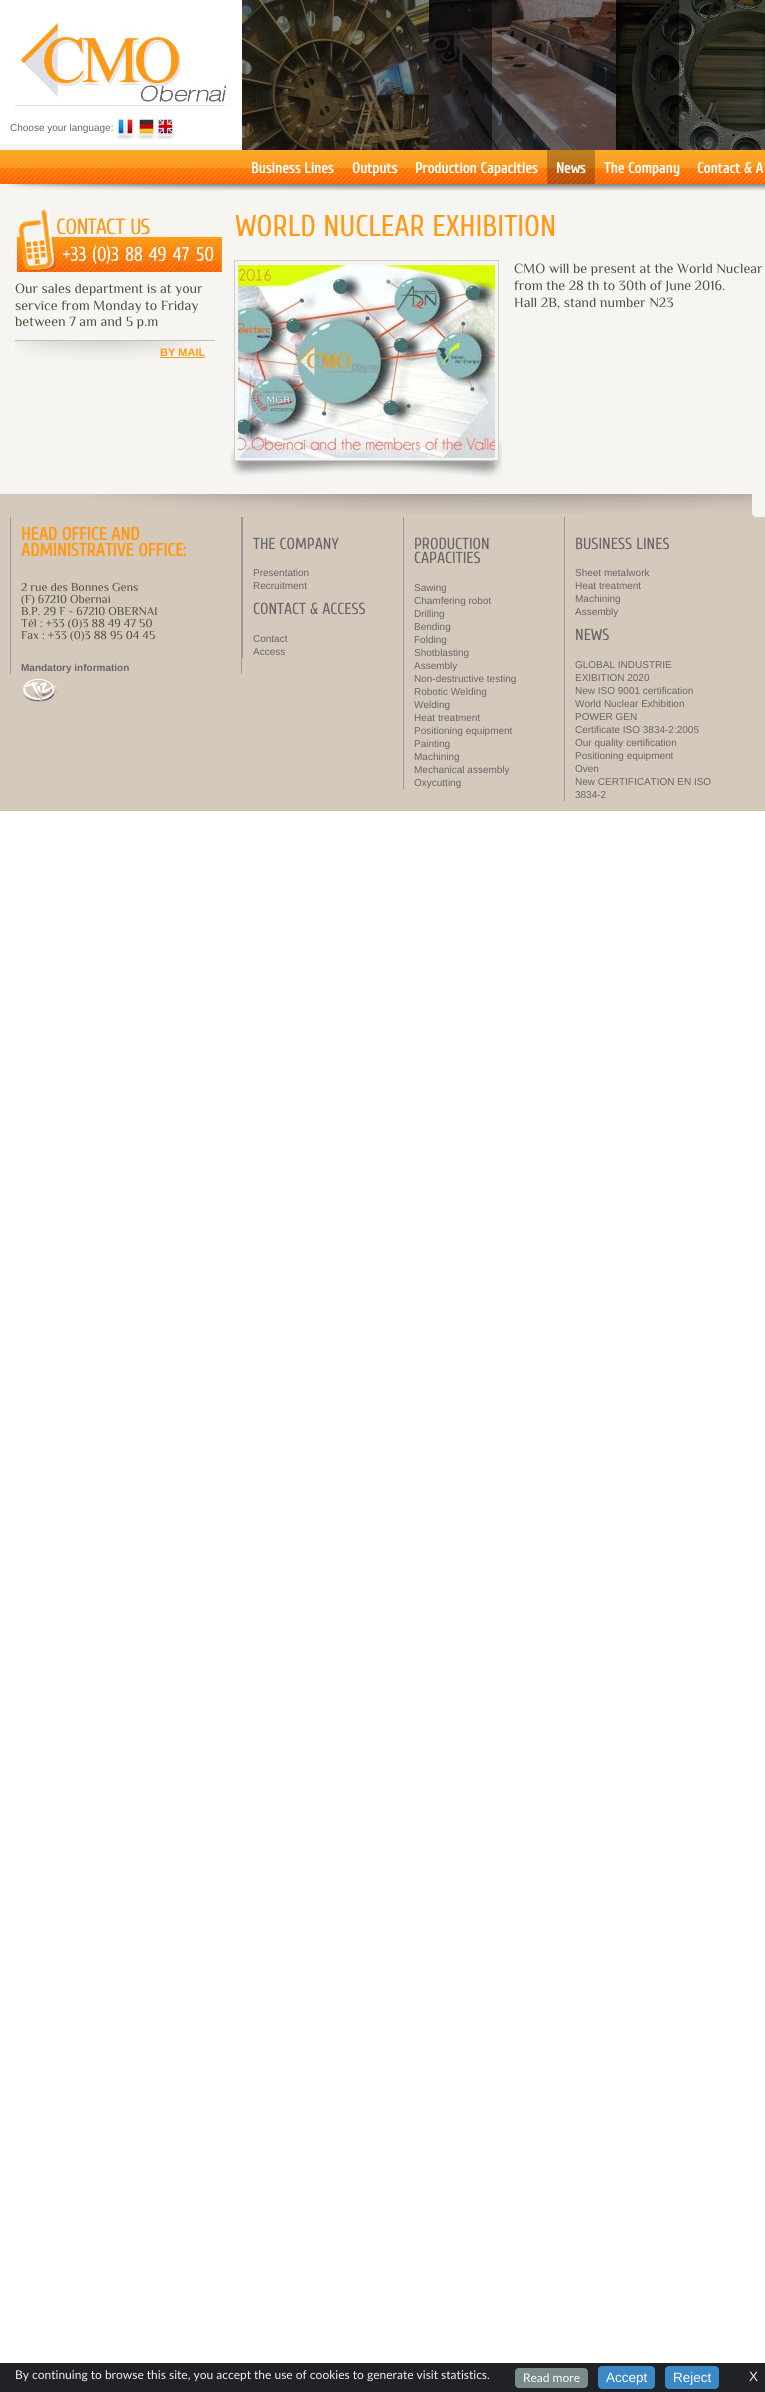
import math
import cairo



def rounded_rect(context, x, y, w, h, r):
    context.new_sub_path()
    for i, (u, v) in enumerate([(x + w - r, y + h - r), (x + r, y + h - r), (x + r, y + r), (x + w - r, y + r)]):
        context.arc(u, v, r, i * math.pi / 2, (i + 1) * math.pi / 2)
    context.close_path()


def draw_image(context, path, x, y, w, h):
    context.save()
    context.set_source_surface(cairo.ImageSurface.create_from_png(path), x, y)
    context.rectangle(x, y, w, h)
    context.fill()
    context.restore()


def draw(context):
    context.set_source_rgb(1, 1, 1)
    context.paint()
    context.set_source_rgb(247 / 255, 245 / 255, 242 / 255)
    context.rectangle(0, 144, 765, 350)
    context.fill()
    draw_image(context, "images/1.png", 15, 23, 216, 84)
    draw_image(context, "images/2.png", 242, 0, 187, 150)
    draw_image(context, "images/3.png", 429, 0, 187, 150)
    context.set_source_rgba(0, 0, 0, 0.5)
    context.rectangle(242, 0, 250, 150)
    context.fill()
    draw_image(context, "images/4.png", 616, 0, 149, 150)
    context.rectangle(429, 0, 250, 150)
    context.fill()
    context.rectangle(616, 0, 149, 150)
    context.fill()
    draw_image(context, "images/5.png", 116, 118, 20, 22)
    draw_image(context, "images/6.png", 136, 118, 20, 22)
    draw_image(context, "images/7.png", 156, 118, 19, 21)
    draw_image(context, "images/8.png", 0, 150, 765, 41)
    context.set_source_rgba(0, 0, 0, 0.25)
    context.rectangle(547, 150, 48, 34)
    context.fill()
    draw_image(context, "images/9.png", 229, 260, 274, 218)
    draw_image(context, "images/10.png", 238, 265, 257, 193)
    draw_image(context, "images/11.png", 15, 208, 207, 64)
    draw_image(context, "images/12.png", 15, 341, 186, 19)
    context.set_source_rgb(191 / 255, 193 / 255, 178 / 255)
    context.rectangle(15, 340, 200, 1)
    context.fill()
    context.set_source_rgb(1, 154 / 255, 23 / 255)
    context.rectangle(160, 357, 45, 1)
    context.fill()
    context.set_source_rgb(213 / 255, 201 / 255, 188 / 255)
    context.rectangle(0, 494, 765, 317)
    context.fill()
    draw_image(context, "images/13.png", 90, 494, 663, 19)
    context.set_source_rgb(247 / 255, 245 / 255, 242 / 255)
    context.new_path()
    context.move_to(752, 494)
    context.line_to(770, 494)
    context.line_to(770, 512)
    context.curve_to(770, 515, 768, 517, 765, 517)
    context.line_to(757, 517)
    context.curve_to(754, 517, 752, 515, 752, 512)
    context.close_path()
    context.fill()
    context.set_source_rgb(153 / 255, 153 / 255, 153 / 255)
    context.rectangle(241, 517, 1, 157)
    context.fill()
    context.rectangle(10, 517, 1, 157)
    context.fill()
    draw_image(context, "images/14.png", 23, 679, 36, 23)
    context.rectangle(242, 517, 1, 141)
    context.fill()
    context.rectangle(403, 517, 1, 272)
    context.fill()
    context.rectangle(564, 517, 1, 284)
    context.fill()
    context.set_source_rgb(32 / 255, 34 / 255, 38 / 255)
    context.rectangle(0, 2363, 765, 29)
    context.fill()
    context.set_source_rgb(123 / 255, 138 / 255, 139 / 255)
    rounded_rect(context, 515, 2368, 73, 20, 4)
    context.fill()
    context.set_source_rgb(59 / 255, 137 / 255, 199 / 255)
    rounded_rect(context, 598, 2366, 57, 23, 4)
    context.fill()
    rounded_rect(context, 665, 2366, 54, 23, 4)
    context.fill()
    context.select_font_face("Liberation Sans")
    context.set_font_size(10)
    context.set_source_rgb(102 / 255, 102 / 255, 102 / 255)
    context.move_to(10, 131)
    context.show_text("Choose your language:")
    context.select_font_face("Cuprum", cairo.FontSlant.NORMAL, cairo.FontWeight.BOLD)
    context.set_font_size(15)
    context.set_source_rgb(1, 1, 1)
    context.move_to(251, 173)
    context.show_text("Business Lines")
    context.move_to(352, 173)
    context.show_text("Outputs")
    context.move_to(415, 173)
    context.show_text("Production Capacities")
    context.move_to(556, 173)
    context.show_text("News")
    context.move_to(604, 173)
    context.show_text("The Company")
    context.move_to(697, 173)
    context.show_text("Contact & A")
    context.select_font_face("Cuprum")
    context.set_font_size(30)
    context.set_source_rgb(1, 154 / 255, 23 / 255)
    context.move_to(235, 236)
    context.show_text("WORLD NUCLEAR EXHIBITION")
    context.select_font_face("Philosopher")
    context.set_font_size(14)
    context.set_source_rgb(80 / 255, 82 / 255, 61 / 255)
    context.move_to(514, 273)
    context.show_text("CMO will be present at the World Nuclear")
    context.move_to(514, 290)
    context.show_text("from the 28 th to 30th of June 2016.")
    context.move_to(514, 307)
    context.show_text("Hall 2B, stand number N23")
    context.move_to(15, 293)
    context.show_text("Our sales department is at your")
    context.move_to(15, 310)
    context.show_text("service from Monday to Friday")
    context.move_to(15, 326)
    context.show_text("between 7 am and 5 p.m")
    context.select_font_face("Liberation Sans", cairo.FontSlant.NORMAL, cairo.FontWeight.BOLD)
    context.set_font_size(11)
    context.set_source_rgb(1, 154 / 255, 23 / 255)
    context.move_to(160, 356)
    context.show_text("BY MAIL")
    context.select_font_face("Cuprum", cairo.FontSlant.NORMAL, cairo.FontWeight.BOLD)
    context.set_font_size(18)
    context.move_to(21, 540)
    context.show_text("HEAD OFFICE AND")
    context.move_to(21, 556)
    context.show_text("ADMINISTRATIVE OFFICE:")
    context.select_font_face("Philosopher")
    context.set_font_size(12)
    context.set_source_rgb(80 / 255, 82 / 255, 61 / 255)
    context.move_to(21, 591)
    context.show_text("2 rue des Bonnes Gens")
    context.move_to(21, 603)
    context.show_text("(F) 67210 Obernai")
    context.move_to(21, 615)
    context.show_text("B.P. 29 F - 67210 OBERNAI")
    context.move_to(21, 627)
    context.show_text("Tél : +33 (0)3 88 49 47 50")
    context.move_to(21, 639)
    context.show_text("Fax : +33 (0)3 88 95 04 45")
    context.select_font_face("Liberation Sans", cairo.FontSlant.NORMAL, cairo.FontWeight.BOLD)
    context.set_font_size(10)
    context.set_source_rgb(102 / 255, 102 / 255, 102 / 255)
    context.move_to(21, 671)
    context.show_text("Mandatory information")
    context.select_font_face("Cuprum")
    context.set_font_size(16)
    context.move_to(253, 549)
    context.show_text("THE COMPANY")
    context.select_font_face("Liberation Sans")
    context.set_font_size(10)
    context.move_to(253, 576)
    context.show_text("Presentation")
    context.move_to(253, 589)
    context.show_text("Recruitment")
    context.select_font_face("Cuprum")
    context.set_font_size(16)
    context.move_to(253, 614)
    context.show_text("CONTACT & ACCESS")
    context.select_font_face("Liberation Sans")
    context.set_font_size(10)
    context.move_to(253, 642)
    context.show_text("Contact")
    context.move_to(253, 655)
    context.show_text("Access")
    context.select_font_face("Cuprum")
    context.set_font_size(16)
    context.move_to(414, 549)
    context.show_text("PRODUCTION")
    context.move_to(414, 563)
    context.show_text("CAPACITIES")
    context.select_font_face("Liberation Sans")
    context.set_font_size(10)
    context.move_to(414, 591)
    context.show_text("Sawing")
    context.move_to(414, 604)
    context.show_text("Chamfering robot")
    context.move_to(414, 617)
    context.show_text("Drilling")
    context.move_to(414, 630)
    context.show_text("Bending")
    context.move_to(414, 643)
    context.show_text("Folding")
    context.move_to(414, 656)
    context.show_text("Shotblasting")
    context.move_to(414, 669)
    context.show_text("Assembly")
    context.move_to(414, 682)
    context.show_text("Non-destructive testing")
    context.move_to(414, 695)
    context.show_text("Robotic Welding")
    context.move_to(414, 708)
    context.show_text("Welding")
    context.move_to(414, 721)
    context.show_text("Heat treatment")
    context.move_to(414, 734)
    context.show_text("Positioning equipment")
    context.move_to(414, 747)
    context.show_text("Painting")
    context.move_to(414, 760)
    context.show_text("Machining")
    context.move_to(414, 773)
    context.show_text("Mechanical assembly")
    context.move_to(414, 786)
    context.show_text("Oxycutting")
    context.select_font_face("Cuprum")
    context.set_font_size(16)
    context.move_to(575, 549)
    context.show_text("BUSINESS LINES")
    context.select_font_face("Liberation Sans")
    context.set_font_size(10)
    context.move_to(575, 576)
    context.show_text("Sheet metalwork")
    context.move_to(575, 589)
    context.show_text("Heat treatment")
    context.move_to(575, 602)
    context.show_text("Machining")
    context.move_to(575, 615)
    context.show_text("Assembly")
    context.select_font_face("Cuprum")
    context.set_font_size(16)
    context.move_to(575, 640)
    context.show_text("NEWS")
    context.select_font_face("Liberation Sans")
    context.set_font_size(10)
    context.move_to(575, 668)
    context.show_text("GLOBAL INDUSTRIE")
    context.move_to(575, 681)
    context.show_text("EXIBITION 2020")
    context.move_to(575, 694)
    context.show_text("New ISO 9001 certification")
    context.move_to(575, 707)
    context.show_text("World Nuclear Exhibition")
    context.move_to(575, 720)
    context.show_text("POWER GEN")
    context.move_to(575, 733)
    context.show_text("Certificate ISO 3834-2:2005")
    context.move_to(575, 746)
    context.show_text("Our quality certification")
    context.move_to(575, 759)
    context.show_text("Positioning equipment")
    context.move_to(575, 772)
    context.show_text("Oven")
    context.move_to(575, 785)
    context.show_text("New CERTIFICATION EN ISO")
    context.move_to(575, 798)
    context.show_text("3834-2")
    context.select_font_face("Lato")
    context.set_font_size(12)
    context.set_source_rgb(241 / 255, 241 / 255, 243 / 255)
    context.move_to(15, 2379)
    context.show_text("By continuing to browse this site, you accept the use of cookies to generate visit statistics.")
    context.set_source_rgb(1, 1, 1)
    context.move_to(523, 2382)
    context.show_text("Read more")
    context.select_font_face("Liberation Sans")
    context.set_font_size(13.5)
    context.move_to(606, 2382)
    context.show_text("Accept")
    context.move_to(673, 2382)
    context.show_text("Reject")
    context.set_source_rgb(241 / 255, 241 / 255, 243 / 255)
    context.move_to(749, 2381)
    context.show_text("X")


surface = cairo.ImageSurface(cairo.Format.RGB24, 765, 2392)
context = cairo.Context(surface)
options = cairo.FontOptions()
options.set_hint_metrics(cairo.HintMetrics.OFF)
options.set_hint_style(cairo.HintStyle.NONE)
context.set_font_options(options)
context.set_miter_limit(4)
draw(context)
surface.write_to_png("out.png")
